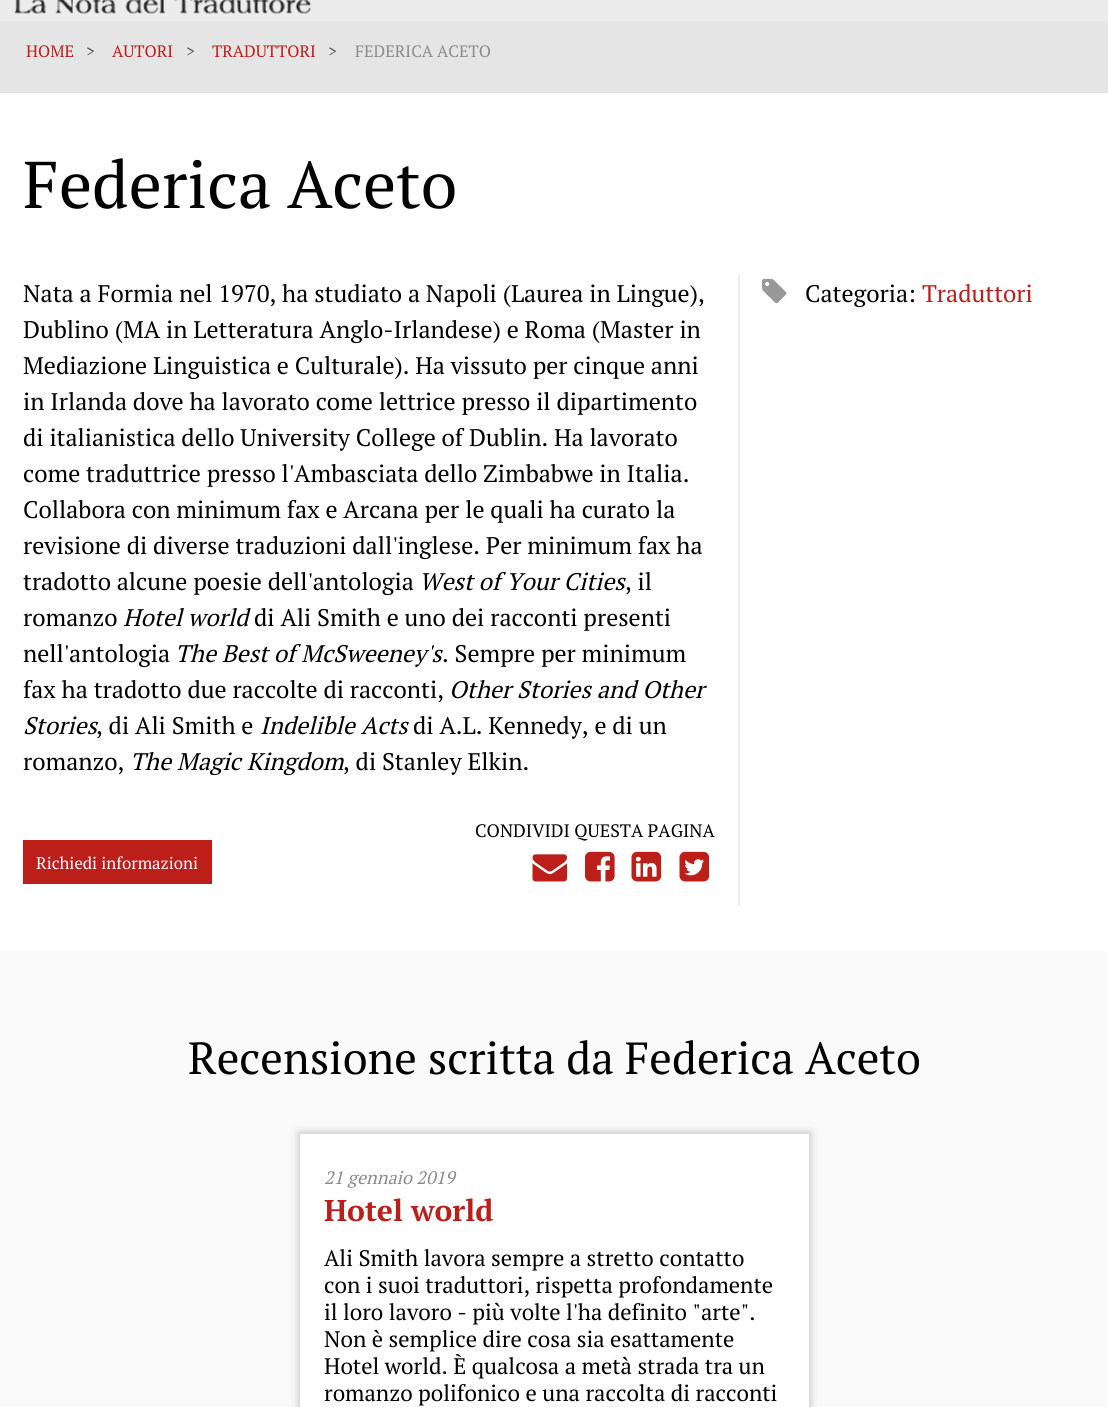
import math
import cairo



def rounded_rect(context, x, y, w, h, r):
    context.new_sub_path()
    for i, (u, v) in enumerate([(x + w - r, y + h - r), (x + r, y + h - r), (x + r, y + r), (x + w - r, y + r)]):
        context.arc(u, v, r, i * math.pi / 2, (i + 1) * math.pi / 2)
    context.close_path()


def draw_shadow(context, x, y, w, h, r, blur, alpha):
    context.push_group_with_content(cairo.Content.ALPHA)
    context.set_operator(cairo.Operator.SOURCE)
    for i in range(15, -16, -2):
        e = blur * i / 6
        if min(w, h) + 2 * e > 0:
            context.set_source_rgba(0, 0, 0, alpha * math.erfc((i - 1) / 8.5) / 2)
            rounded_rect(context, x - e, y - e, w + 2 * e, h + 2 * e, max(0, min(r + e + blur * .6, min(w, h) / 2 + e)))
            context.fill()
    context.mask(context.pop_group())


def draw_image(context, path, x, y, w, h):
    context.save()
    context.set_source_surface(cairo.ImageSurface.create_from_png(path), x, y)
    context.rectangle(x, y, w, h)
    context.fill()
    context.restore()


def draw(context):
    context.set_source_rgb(1, 1, 1)
    context.paint()
    context.set_source_rgb(236 / 255, 236 / 255, 236 / 255)
    context.rectangle(0, 0, 1108, 21)
    context.fill()
    draw_image(context, "images/1.png", 14, 0, 297, 14)
    context.set_source_rgb(229 / 255, 229 / 255, 229 / 255)
    context.rectangle(0, 21, 1108, 72)
    context.fill()
    context.set_source_rgb(236 / 255, 236 / 255, 236 / 255)
    context.rectangle(738, 275, 2, 631)
    context.fill()
    draw_image(context, "images/2.png", 532, 854, 36, 28)
    draw_image(context, "images/3.png", 585, 851, 30, 31)
    draw_image(context, "images/4.png", 631, 851, 31, 31)
    draw_image(context, "images/5.png", 679, 851, 31, 31)
    context.set_source_rgb(188 / 255, 30 / 255, 26 / 255)
    context.rectangle(23, 840, 189, 44)
    context.fill()
    draw_image(context, "images/6.png", 762, 278, 25, 26)
    context.set_source_rgb(250 / 255, 250 / 255, 250 / 255)
    context.rectangle(0, 951, 1108, 456)
    context.fill()
    context.set_source_rgb(193 / 255, 190 / 255, 190 / 255)
    draw_shadow(context, 299, 1133, 511, 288, 0, 4.5, 1)
    context.set_source_rgb(1, 1, 1)
    context.rectangle(300, 1134, 509, 273)
    context.fill()
    context.select_font_face("PT Serif")
    context.set_font_size(16.5)
    context.set_source_rgb(188 / 255, 30 / 255, 26 / 255)
    context.move_to(26, 57)
    context.show_text("HOME")
    context.set_source_rgb(83 / 255, 80 / 255, 80 / 255)
    context.move_to(86, 57)
    context.show_text(">")
    context.set_source_rgb(188 / 255, 30 / 255, 26 / 255)
    context.move_to(112, 57)
    context.show_text("AUTORI")
    context.set_source_rgb(83 / 255, 80 / 255, 80 / 255)
    context.move_to(186, 57)
    context.show_text(">")
    context.set_source_rgb(188 / 255, 30 / 255, 26 / 255)
    context.move_to(212, 57)
    context.show_text("TRADUTTORI")
    context.set_source_rgb(83 / 255, 80 / 255, 80 / 255)
    context.move_to(328, 57)
    context.show_text(">")
    context.set_source_rgb(138 / 255, 138 / 255, 138 / 255)
    context.move_to(355, 57)
    context.show_text("FEDERICA ACETO")
    context.set_font_size(66)
    context.set_source_rgb(0, 0, 0)
    context.move_to(23, 208)
    context.show_text("Federica Aceto")
    context.set_font_size(24)
    context.move_to(23, 302)
    context.show_text("Nata a Formia nel 1970, ha studiato a Napoli (Laurea in Lingue),")
    context.move_to(23, 338)
    context.show_text("Dublino (MA in Letteratura Anglo-Irlandese) e Roma (Master in")
    context.move_to(23, 374)
    context.show_text("Mediazione Linguistica e Culturale). Ha vissuto per cinque anni")
    context.move_to(23, 410)
    context.show_text("in Irlanda dove ha lavorato come lettrice presso il dipartimento")
    context.move_to(23, 446)
    context.show_text("di italianistica dello University College of Dublin. Ha lavorato")
    context.move_to(23, 482)
    context.show_text("come traduttrice presso l'Ambasciata dello Zimbabwe in Italia.")
    context.move_to(23, 518)
    context.show_text("Collabora con minimum fax e Arcana per le quali ha curato la")
    context.move_to(23, 554)
    context.show_text("revisione di diverse traduzioni dall'inglese. Per minimum fax ha")
    context.move_to(23, 590)
    context.show_text("tradotto alcune poesie dell'antologia")
    context.select_font_face("PT Serif", cairo.FontSlant.ITALIC)
    context.move_to(419, 590)
    context.show_text("West of Your Cities")
    context.select_font_face("PT Serif")
    context.move_to(625, 590)
    context.show_text(", il")
    context.move_to(23, 626)
    context.show_text("romanzo")
    context.select_font_face("PT Serif", cairo.FontSlant.ITALIC)
    context.move_to(123, 626)
    context.show_text("Hotel world")
    context.select_font_face("PT Serif")
    context.move_to(254, 626)
    context.show_text("di Ali Smith e uno dei racconti presenti")
    context.move_to(23, 662)
    context.show_text("nell'antologia")
    context.select_font_face("PT Serif", cairo.FontSlant.ITALIC)
    context.move_to(175, 662)
    context.show_text("The Best of McSweeney's")
    context.select_font_face("PT Serif")
    context.move_to(442, 662)
    context.show_text(". Sempre per minimum")
    context.move_to(23, 698)
    context.show_text("fax ha tradotto due raccolte di racconti,")
    context.select_font_face("PT Serif", cairo.FontSlant.ITALIC)
    context.move_to(449, 698)
    context.show_text("Other Stories and Other")
    context.move_to(23, 734)
    context.show_text("Stories")
    context.select_font_face("PT Serif")
    context.move_to(96, 734)
    context.show_text(", di Ali Smith e")
    context.select_font_face("PT Serif", cairo.FontSlant.ITALIC)
    context.move_to(260, 734)
    context.show_text("Indelible Acts")
    context.select_font_face("PT Serif")
    context.move_to(413, 734)
    context.show_text("di A.L. Kennedy, e di un")
    context.move_to(23, 770)
    context.show_text("romanzo,")
    context.select_font_face("PT Serif", cairo.FontSlant.ITALIC)
    context.move_to(130, 770)
    context.show_text("The Magic Kingdom")
    context.select_font_face("PT Serif")
    context.move_to(343, 770)
    context.show_text(", di Stanley Elkin.")
    context.set_font_size(18)
    context.move_to(475, 837)
    context.show_text("CONDIVIDI QUESTA PAGINA")
    context.set_font_size(16.75)
    context.set_source_rgb(1, 1, 1)
    context.move_to(36, 869)
    context.show_text("Richiedi informazioni")
    context.set_font_size(24)
    context.set_source_rgb(0, 0, 0)
    context.move_to(805, 302)
    context.show_text("Categoria:")
    context.set_source_rgb(188 / 255, 30 / 255, 26 / 255)
    context.move_to(922, 302)
    context.show_text("Traduttori")
    context.set_font_size(45)
    context.set_source_rgb(0, 0, 0)
    context.move_to(188, 1074)
    context.show_text("Recensione scritta da Federica Aceto")
    context.select_font_face("PT Serif", cairo.FontSlant.ITALIC)
    context.set_font_size(18)
    context.set_source_rgb(138 / 255, 138 / 255, 138 / 255)
    context.move_to(324, 1184)
    context.show_text("21 gennaio 2019")
    context.select_font_face("PT Serif", cairo.FontSlant.NORMAL, cairo.FontWeight.BOLD)
    context.set_font_size(30)
    context.set_source_rgb(188 / 255, 30 / 255, 26 / 255)
    context.move_to(324, 1221)
    context.show_text("Hotel world")
    context.select_font_face("PT Serif")
    context.set_font_size(22.5)
    context.set_source_rgb(0, 0, 0)
    context.move_to(324, 1266)
    context.show_text("Ali Smith lavora sempre a stretto contatto")
    context.move_to(324, 1293)
    context.show_text("con i suoi traduttori, rispetta profondamente")
    context.move_to(324, 1320)
    context.show_text("il loro lavoro - più volte l'ha definito \"arte\".")
    context.move_to(324, 1347)
    context.show_text("Non è semplice dire cosa sia esattamente")
    context.move_to(324, 1374)
    context.show_text("Hotel world. È qualcosa a metà strada tra un")
    context.move_to(324, 1401)
    context.show_text("romanzo polifonico e una raccolta di racconti")


surface = cairo.ImageSurface(cairo.Format.RGB24, 1108, 1407)
context = cairo.Context(surface)
options = cairo.FontOptions()
options.set_hint_metrics(cairo.HintMetrics.OFF)
options.set_hint_style(cairo.HintStyle.NONE)
context.set_font_options(options)
context.set_miter_limit(4)
draw(context)
surface.write_to_png("out.png")
